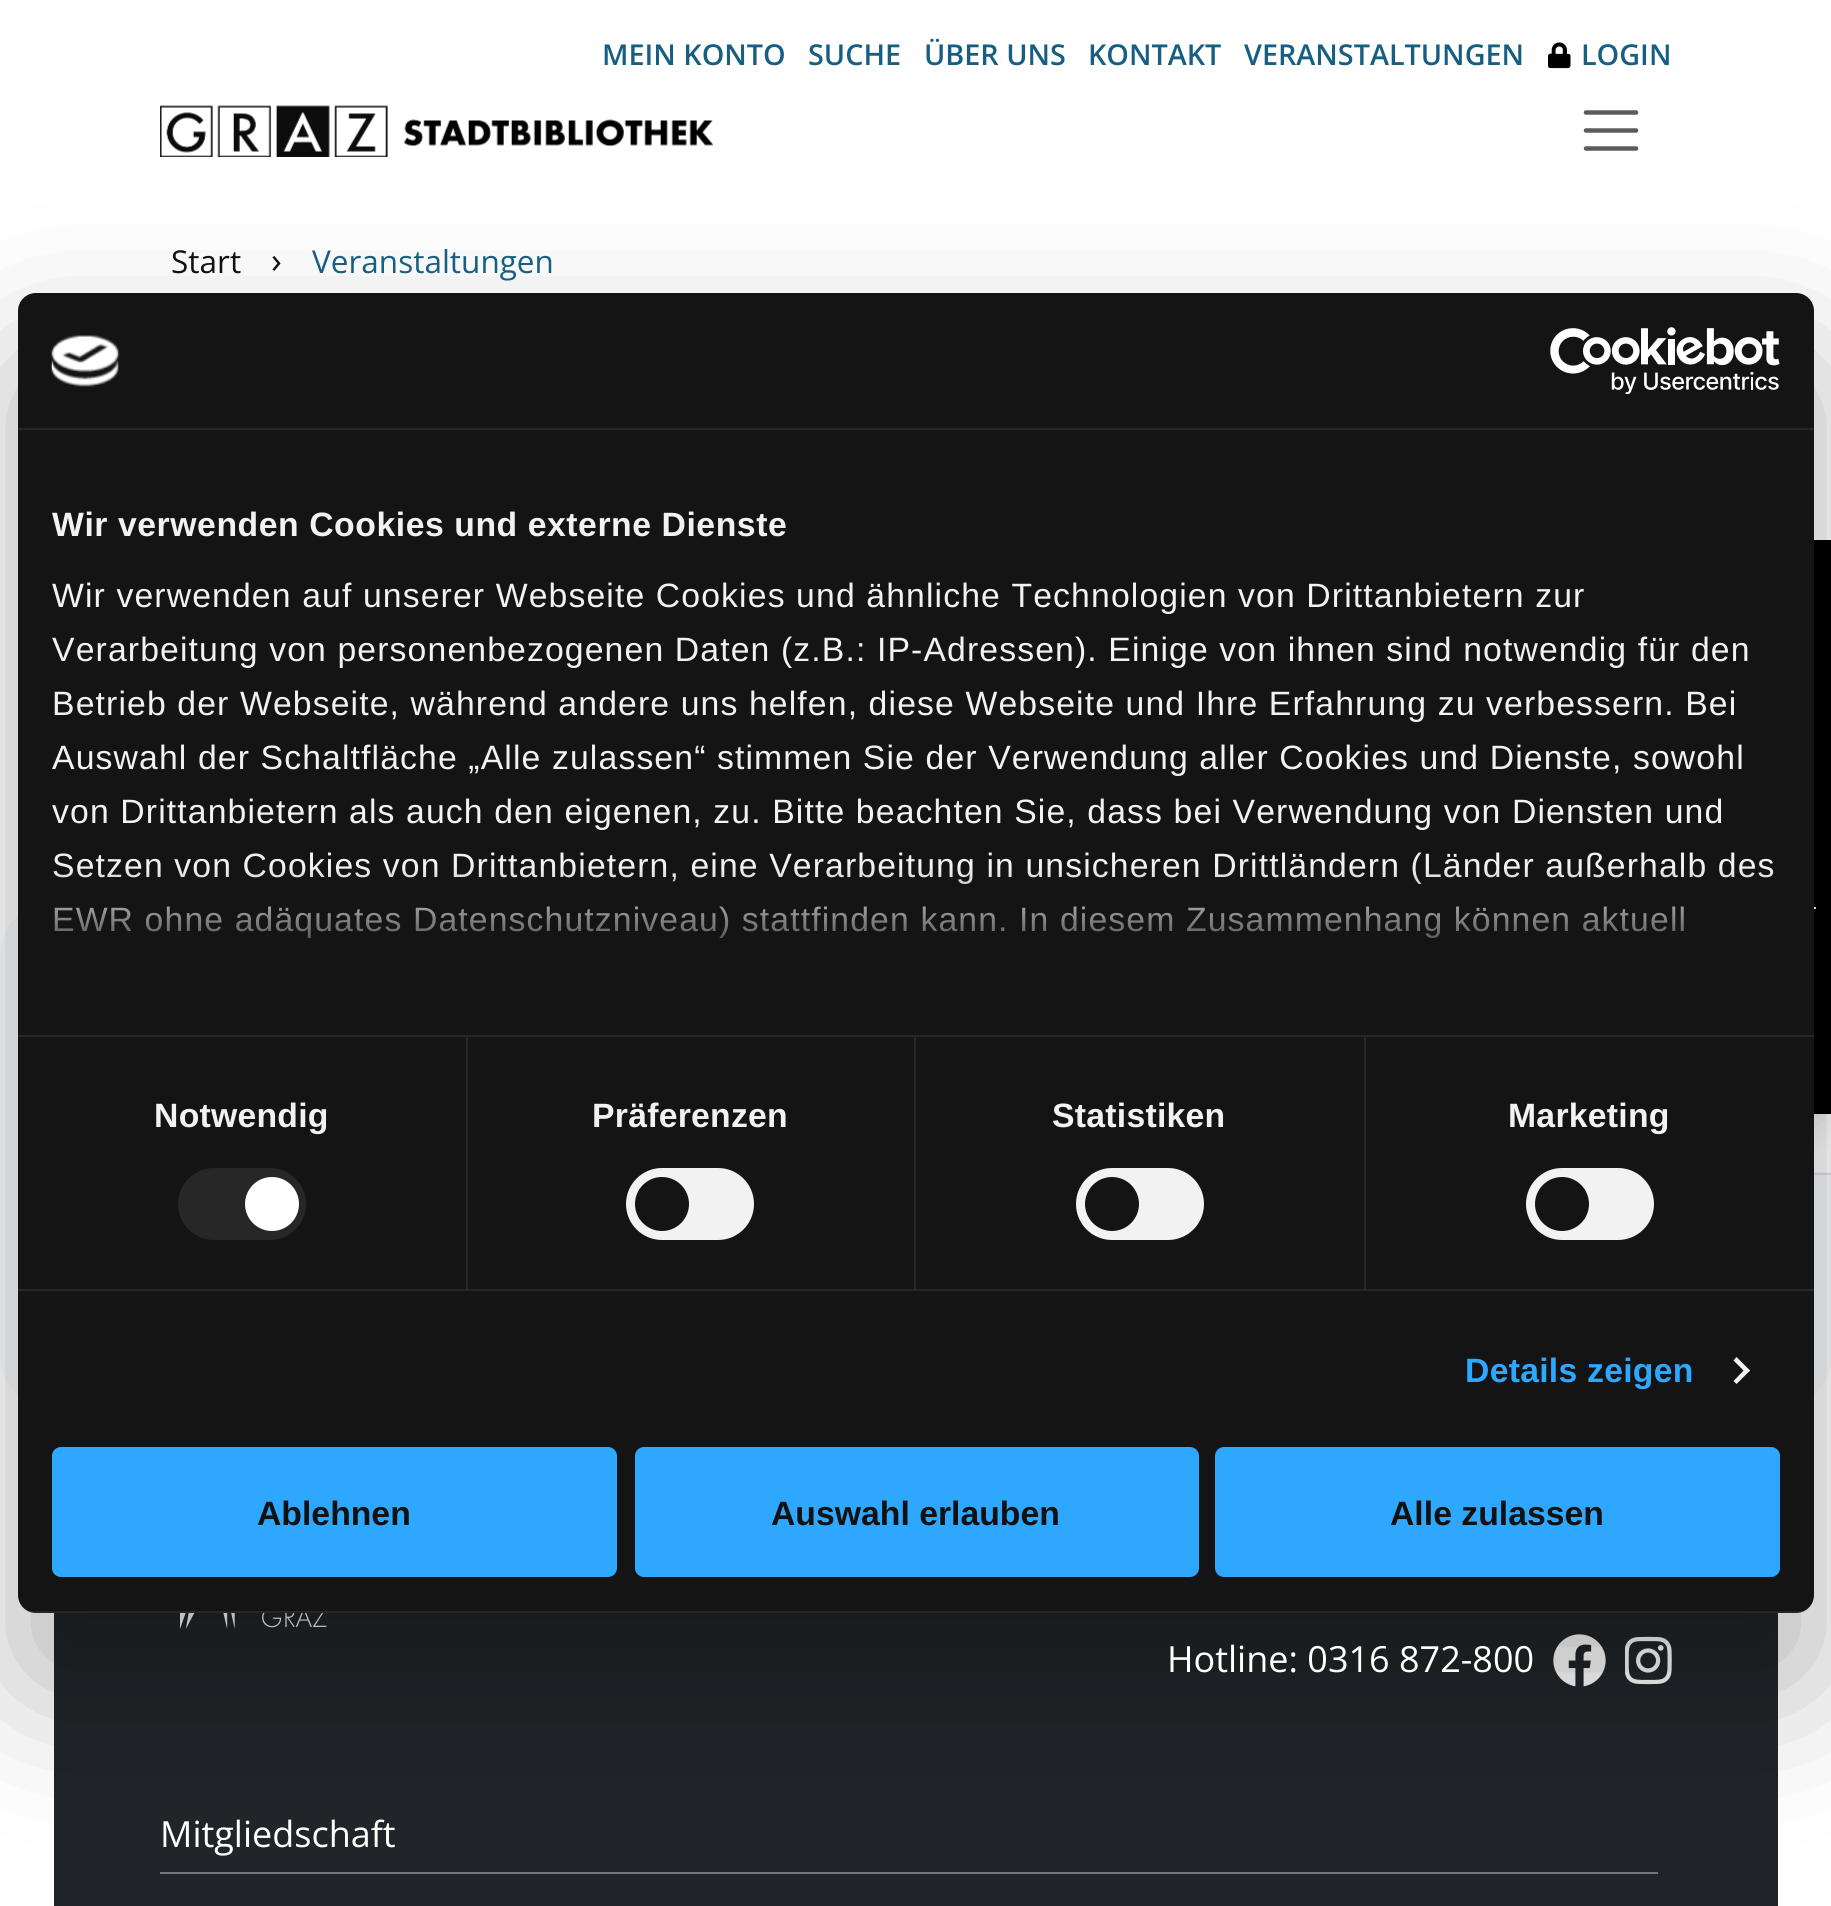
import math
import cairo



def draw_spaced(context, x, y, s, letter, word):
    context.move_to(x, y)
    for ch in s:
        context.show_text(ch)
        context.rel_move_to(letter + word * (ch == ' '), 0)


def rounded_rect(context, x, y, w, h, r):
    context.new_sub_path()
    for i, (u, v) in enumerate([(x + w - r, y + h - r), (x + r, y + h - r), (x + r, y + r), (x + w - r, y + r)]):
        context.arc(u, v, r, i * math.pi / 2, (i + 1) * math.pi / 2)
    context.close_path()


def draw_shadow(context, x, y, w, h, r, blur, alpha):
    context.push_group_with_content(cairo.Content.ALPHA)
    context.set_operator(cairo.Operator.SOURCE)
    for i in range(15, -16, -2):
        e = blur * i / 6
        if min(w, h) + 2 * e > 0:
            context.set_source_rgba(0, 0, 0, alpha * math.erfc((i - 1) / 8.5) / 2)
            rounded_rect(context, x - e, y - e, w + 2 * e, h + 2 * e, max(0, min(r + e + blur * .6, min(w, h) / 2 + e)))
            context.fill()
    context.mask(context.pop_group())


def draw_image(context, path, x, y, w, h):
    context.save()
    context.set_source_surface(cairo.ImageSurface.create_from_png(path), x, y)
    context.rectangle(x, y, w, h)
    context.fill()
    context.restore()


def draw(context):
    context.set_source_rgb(1, 1, 1)
    context.paint()
    draw_image(context, "images/1.png", 1548, 42, 23, 27)
    draw_image(context, "images/2.png", 160, 105, 554, 52)
    context.new_path()
    context.move_to(1586, 112.5)
    context.line_to(1636, 112.5)
    context.move_to(1586, 130.5)
    context.line_to(1636, 130.5)
    context.move_to(1586, 148.5)
    context.line_to(1636, 148.5)
    context.set_source_rgb(89 / 255, 92 / 255, 95 / 255)
    context.set_line_width(4.5)
    context.set_line_cap(cairo.LineCap.ROUND)
    context.stroke()
    context.set_source_rgb(248 / 255, 249 / 255, 250 / 255)
    rounded_rect(context, 0, 902, 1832, 507, 54)
    context.fill()
    context.set_source_rgb(1, 1, 1)
    context.rectangle(1814, 1114, 17, 58)
    context.fill()
    context.rectangle(1617, 1101, 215, 73)
    context.set_source_rgb(222 / 255, 226 / 255, 230 / 255)
    context.set_line_width(2)
    context.set_line_cap(cairo.LineCap.BUTT)
    context.stroke()
    context.set_source_rgb(0, 0, 0)
    draw_shadow(context, 1719, 558, 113, 574, 54, 18, 0.15)
    context.set_source_rgb(0, 0, 0)
    context.rectangle(1814, 540, 17, 574)
    context.fill()
    context.set_source_rgb(1, 1, 1)
    context.rectangle(1814, 907, 2, 2)
    context.fill()
    context.set_source_rgb(33 / 255, 37 / 255, 41 / 255)
    context.rectangle(54, 1613, 1724, 293)
    context.fill()
    draw_image(context, "images/3.png", 180, 1613, 147, 16)
    draw_image(context, "images/4.png", 1553, 1634, 53, 53)
    draw_image(context, "images/5.png", 1625, 1636, 47, 49)
    context.set_source_rgb(119 / 255, 119 / 255, 119 / 255)
    context.rectangle(160, 1872, 1498, 2)
    context.fill()
    context.set_source_rgb(0, 0, 0)
    draw_shadow(context, 18, 365, 1796, 1320, 18, 76.5, 0.3)
    context.set_source_rgb(20 / 255, 20 / 255, 20 / 255)
    rounded_rect(context, 18, 293, 1796, 1320, 18)
    context.fill()
    context.set_source_rgb(39 / 255, 39 / 255, 39 / 255)
    context.rectangle(18, 428, 1796, 2)
    context.fill()
    draw_image(context, "images/6.png", 51, 335, 69, 52)
    draw_image(context, "images/7.png", 1550, 327, 230, 67)
    context.rectangle(18, 1035, 1796, 2)
    context.fill()
    context.rectangle(18, 1289, 1796, 2)
    context.fill()
    context.rectangle(466, 1037, 2, 252)
    context.fill()
    rounded_rect(context, 178, 1168, 128, 72, 36)
    context.fill()
    context.set_source_rgb(1, 1, 1)
    context.arc(272, 1204, 27, 0, 2 * math.pi)
    context.fill()
    context.set_source_rgb(39 / 255, 39 / 255, 39 / 255)
    context.rectangle(914, 1037, 2, 252)
    context.fill()
    context.set_source_rgb(242 / 255, 242 / 255, 242 / 255)
    rounded_rect(context, 626, 1168, 128, 72, 36)
    context.fill()
    context.set_source_rgb(20 / 255, 20 / 255, 20 / 255)
    context.arc(662, 1204, 27, 0, 2 * math.pi)
    context.fill()
    context.set_source_rgb(39 / 255, 39 / 255, 39 / 255)
    context.rectangle(1364, 1037, 2, 252)
    context.fill()
    context.set_source_rgb(242 / 255, 242 / 255, 242 / 255)
    rounded_rect(context, 1076, 1168, 128, 72, 36)
    context.fill()
    context.set_source_rgb(20 / 255, 20 / 255, 20 / 255)
    context.arc(1112, 1204, 27, 0, 2 * math.pi)
    context.fill()
    context.set_source_rgb(242 / 255, 242 / 255, 242 / 255)
    rounded_rect(context, 1526, 1168, 128, 72, 36)
    context.fill()
    context.set_source_rgb(20 / 255, 20 / 255, 20 / 255)
    context.arc(1562, 1204, 27, 0, 2 * math.pi)
    context.fill()
    context.set_source_rgb(242 / 255, 242 / 255, 242 / 255)
    context.new_path()
    context.move_to(1736.5, 1357)
    context.line_to(1750, 1370.5)
    context.line_to(1746.5, 1373.5)
    context.line_to(1733.5, 1360.5)
    context.close_path()
    context.fill()
    context.new_path()
    context.move_to(1746.5, 1367.5)
    context.line_to(1750, 1370.5)
    context.line_to(1736.5, 1384)
    context.line_to(1733.5, 1381)
    context.close_path()
    context.fill()
    context.save()
    rounded_rect(context, 18, 293, 1796, 1320, 18)
    context.clip()
    context.set_source_rgba(1, 1, 1, 0.08)
    context.rectangle(28, 1611, 1776, 2)
    context.fill()
    context.restore()
    context.set_source_rgb(46 / 255, 167 / 255, 1)
    rounded_rect(context, 54.5, 1449.5, 560, 125, 6.5)
    context.fill_preserve()
    context.set_line_width(5)
    context.stroke()
    rounded_rect(context, 637.5, 1449.5, 559, 125, 6.5)
    context.fill_preserve()
    context.stroke()
    rounded_rect(context, 1217.5, 1449.5, 560, 125, 6.5)
    context.fill_preserve()
    context.stroke()
    context.select_font_face("Open Sans SemiBold")
    context.set_font_size(28.75)
    context.set_source_rgb(22 / 255, 95 / 255, 131 / 255)
    context.move_to(602, 65)
    context.show_text("MEIN KONTO")
    context.move_to(808, 65)
    context.show_text("SUCHE")
    context.move_to(924, 65)
    context.show_text("ÜBER UNS")
    context.move_to(1088, 65)
    context.show_text("KONTAKT")
    context.move_to(1244, 65)
    context.show_text("VERANSTALTUNGEN")
    context.move_to(1581, 65)
    context.show_text("LOGIN")
    context.select_font_face("Open Sans")
    context.set_font_size(31.5)
    context.set_source_rgb(17 / 255, 17 / 255, 17 / 255)
    context.move_to(171, 273)
    context.show_text("Start")
    context.set_font_size(36)
    context.move_to(271, 273)
    context.show_text("›")
    context.set_font_size(31.5)
    context.set_source_rgb(22 / 255, 95 / 255, 131 / 255)
    context.move_to(312, 273)
    context.show_text("Veranstaltungen")
    context.set_font_size(36)
    context.set_source_rgb(1, 1, 1)
    context.move_to(1167, 1672)
    context.show_text("Hotline: 0316 872-800")
    context.move_to(160, 1847)
    context.show_text("Mitgliedschaft")
    context.select_font_face("Liberation Sans", cairo.FontSlant.NORMAL, cairo.FontWeight.BOLD)
    context.set_font_size(33.75)
    context.set_source_rgb(242 / 255, 242 / 255, 242 / 255)
    draw_spaced(context, 52, 536, "Wir verwenden Cookies und externe Dienste", 0.55, 0)
    context.select_font_face("Liberation Sans")
    draw_spaced(context, 52, 607, "Wir verwenden auf unserer Webseite Cookies und ähnliche Technologien von Drittanbietern zur", 1.12, 0)
    draw_spaced(context, 52, 661, "Verarbeitung von personenbezogenen Daten (z.B.: IP-Adressen). Einige von ihnen sind notwendig für den", 1.12, 0)
    draw_spaced(context, 52, 715, "Betrieb der Webseite, während andere uns helfen, diese Webseite und Ihre Erfahrung zu verbessern. Bei", 1.12, 0)
    draw_spaced(context, 52, 769, "Auswahl der Schaltfläche „Alle zulassen“ stimmen Sie der Verwendung aller Cookies und Dienste, sowohl", 1.12, 0)
    draw_spaced(context, 52, 823, "von Drittanbietern als auch den eigenen, zu. Bitte beachten Sie, dass bei Verwendung von Diensten und", 1.12, 0)
    draw_spaced(context, 52, 877, "Setzen von Cookies von Drittanbietern, eine Verarbeitung in unsicheren Drittländern (Länder außerhalb des", 1.12, 0)
    draw_spaced(context, 52, 931, "EWR ohne adäquates Datenschutzniveau) stattfinden kann. In diesem Zusammenhang können aktuell", 1.12, 0)
    gradient = cairo.LinearGradient(901, 1036, 901, 867)
    gradient.add_color_stop_rgba(0, 20 / 255, 20 / 255, 20 / 255, 1)
    gradient.add_color_stop_rgba(0.5, 20 / 255, 20 / 255, 20 / 255, 0.8)
    gradient.add_color_stop_rgba(1, 20 / 255, 20 / 255, 20 / 255, 0)
    context.set_source(gradient)
    context.rectangle(53, 869, 1721, 69)
    context.fill()
    context.select_font_face("Liberation Sans", cairo.FontSlant.NORMAL, cairo.FontWeight.BOLD)
    context.set_source_rgb(242 / 255, 242 / 255, 242 / 255)
    draw_spaced(context, 154, 1127, "Notwendig", 0.25, 0)
    draw_spaced(context, 592, 1127, "Präferenzen", 0.25, 0)
    draw_spaced(context, 1052, 1127, "Statistiken", 0.25, 0)
    draw_spaced(context, 1508, 1127, "Marketing", 0.25, 0)
    context.set_source_rgb(46 / 255, 167 / 255, 1)
    draw_spaced(context, 1465, 1382, "Details zeigen", 0.25, 0)
    context.set_source_rgb(17 / 255, 17 / 255, 17 / 255)
    context.move_to(257, 1525)
    context.show_text("Ablehnen")
    context.move_to(771, 1525)
    context.show_text("Auswahl erlauben")
    context.move_to(1390, 1525)
    context.show_text("Alle zulassen")


surface = cairo.ImageSurface(cairo.Format.RGB24, 1831, 1906)
context = cairo.Context(surface)
options = cairo.FontOptions()
options.set_hint_metrics(cairo.HintMetrics.OFF)
options.set_hint_style(cairo.HintStyle.NONE)
context.set_font_options(options)
context.set_miter_limit(4)
draw(context)
surface.write_to_png("out.png")
